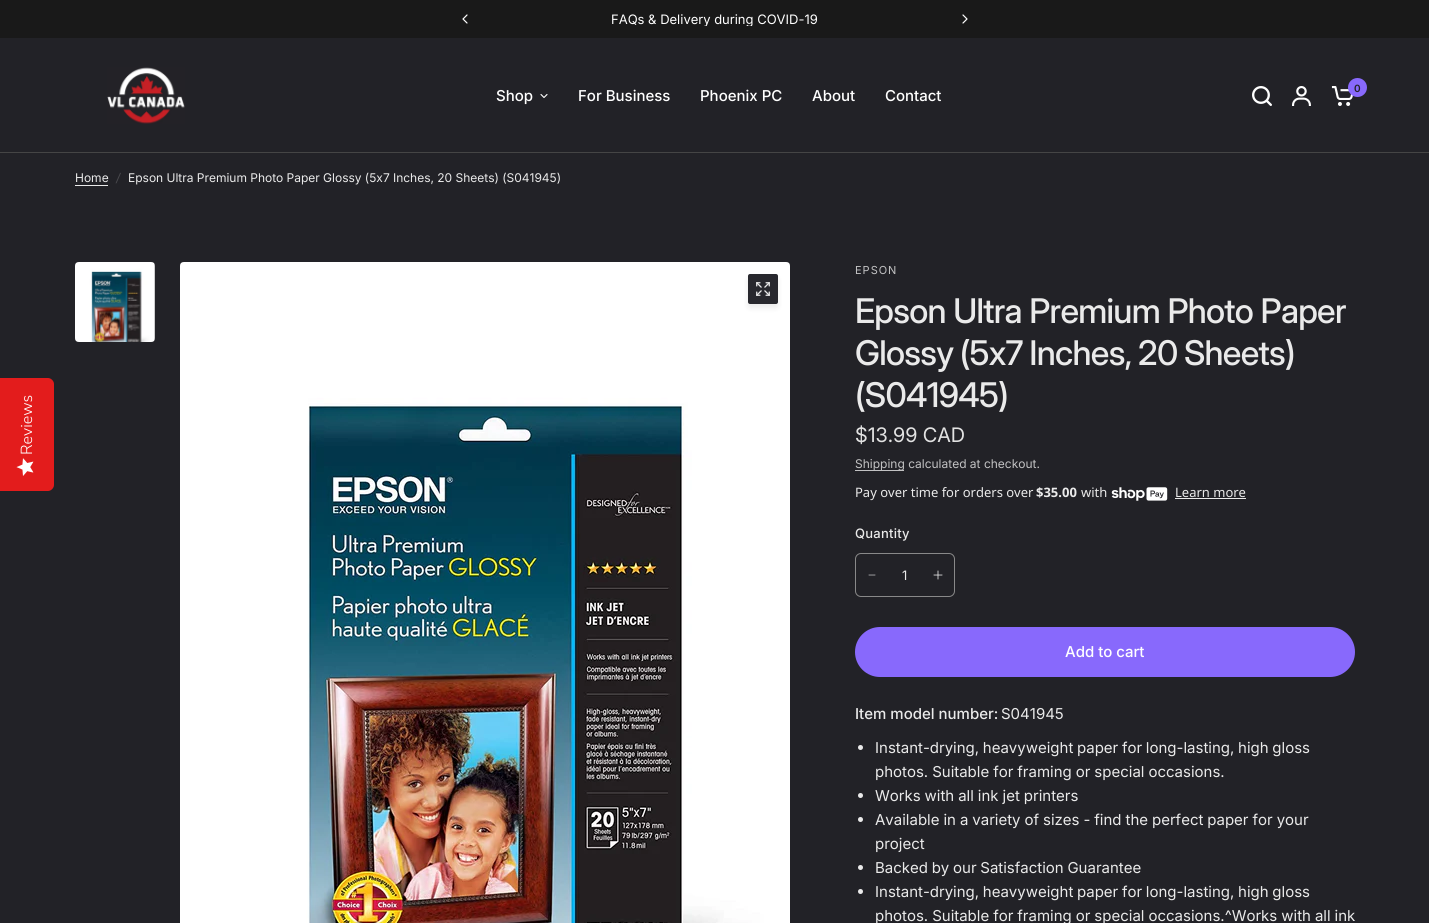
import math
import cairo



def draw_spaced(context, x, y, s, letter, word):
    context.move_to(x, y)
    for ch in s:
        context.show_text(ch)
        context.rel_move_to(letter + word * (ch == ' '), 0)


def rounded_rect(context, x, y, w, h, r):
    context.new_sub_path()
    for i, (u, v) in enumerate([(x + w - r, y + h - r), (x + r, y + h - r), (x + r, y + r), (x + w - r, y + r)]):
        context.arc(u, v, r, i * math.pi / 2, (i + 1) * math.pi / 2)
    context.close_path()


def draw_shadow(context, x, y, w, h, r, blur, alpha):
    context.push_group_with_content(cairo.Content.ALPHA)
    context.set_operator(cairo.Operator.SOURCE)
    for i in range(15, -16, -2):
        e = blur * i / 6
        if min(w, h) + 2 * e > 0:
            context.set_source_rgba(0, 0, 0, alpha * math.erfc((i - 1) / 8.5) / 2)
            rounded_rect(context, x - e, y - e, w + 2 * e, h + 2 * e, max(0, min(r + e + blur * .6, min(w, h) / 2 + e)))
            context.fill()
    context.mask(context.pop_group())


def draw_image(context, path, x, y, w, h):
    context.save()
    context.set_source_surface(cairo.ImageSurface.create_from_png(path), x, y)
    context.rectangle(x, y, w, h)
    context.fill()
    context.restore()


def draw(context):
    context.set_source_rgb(34 / 255, 34 / 255, 39 / 255)
    context.paint()
    context.set_source_rgb(227 / 255, 28 / 255, 28 / 255)
    context.new_path()
    context.move_to(0, 491)
    context.line_to(0, 378)
    context.line_to(48, 378)
    context.curve_to(51, 378, 54, 381, 54, 384)
    context.line_to(54, 485)
    context.curve_to(54, 488, 51, 491, 48, 491)
    context.close_path()
    context.fill()
    draw_image(context, "images/1.png", 16, 458, 18, 18)
    context.set_source_rgb(25 / 255, 25 / 255, 25 / 255)
    context.rectangle(0, 0, 1429, 38)
    context.fill()
    context.new_path()
    context.move_to(467, 15)
    context.line_to(463, 19)
    context.line_to(467, 23)
    context.set_source_rgb(1, 1, 1)
    context.set_line_width(1.2)
    context.set_line_cap(cairo.LineCap.ROUND)
    context.set_line_join(cairo.LineJoin.ROUND)
    context.stroke()
    context.new_path()
    context.move_to(963, 15)
    context.line_to(967, 19)
    context.line_to(963, 23)
    context.stroke()
    draw_image(context, "images/2.png", 107, 67, 78, 57)
    context.new_path()
    context.move_to(547, 94.5)
    context.line_to(544, 97.5)
    context.line_to(541, 94.5)
    context.set_line_width(1.1)
    context.stroke()
    draw_image(context, "images/3.png", 1252, 86, 20, 20)
    draw_image(context, "images/4.png", 1292, 86, 19, 20)
    draw_image(context, "images/5.png", 1331, 86, 22, 20)
    context.set_source_rgb(136 / 255, 105 / 255, 252 / 255)
    context.arc(1357.5, 87.5, 9.5, 0, 2 * math.pi)
    context.fill()
    context.set_source_rgb(69 / 255, 69 / 255, 69 / 255)
    context.rectangle(0, 152, 1429, 1)
    context.fill()
    context.set_source_rgb(234 / 255, 234 / 255, 234 / 255)
    context.rectangle(75, 185, 33, 1)
    context.fill()
    draw_image(context, "images/6.png", 75, 262, 80, 80)
    draw_image(context, "images/7.png", 180, 262, 610, 661)
    context.set_source_rgb(0, 0, 0)
    draw_shadow(context, 748, 278, 30, 30, 2, 3, 0.08)
    context.set_source_rgb(40 / 255, 40 / 255, 46 / 255)
    rounded_rect(context, 748, 274, 30, 30, 2)
    context.fill()
    draw_image(context, "images/8.png", 756, 282, 14, 14)
    context.set_source_rgb(194 / 255, 194 / 255, 195 / 255)
    context.rectangle(855, 470, 49, 1)
    context.fill()
    draw_image(context, "images/9.png", 1111, 487, 57, 14)
    context.set_source_rgb(234 / 255, 234 / 255, 234 / 255)
    context.rectangle(1175, 498, 71, 1)
    context.fill()
    rounded_rect(context, 855.5, 553.5, 99, 43, 5.5)
    context.set_source_rgb(137 / 255, 137 / 255, 137 / 255)
    context.set_line_width(1)
    context.set_line_cap(cairo.LineCap.BUTT)
    context.set_line_join(cairo.LineJoin.MITER)
    context.stroke()
    context.new_path()
    context.move_to(869, 575)
    context.line_to(875, 575)
    context.set_source_rgb(154 / 255, 154 / 255, 156 / 255)
    context.set_line_cap(cairo.LineCap.ROUND)
    context.set_line_join(cairo.LineJoin.ROUND)
    context.stroke()
    draw_image(context, "images/10.png", 933, 570, 10, 10)
    context.set_source_rgb(136 / 255, 105 / 255, 252 / 255)
    rounded_rect(context, 855, 627, 500, 50, 25)
    context.fill()
    context.set_source_rgb(234 / 255, 234 / 255, 234 / 255)
    context.arc(860.5, 747.5, 2.5, 0, 2 * math.pi)
    context.fill()
    context.arc(860.5, 795.5, 2.5, 0, 2 * math.pi)
    context.fill()
    context.arc(860.5, 819.5, 2.5, 0, 2 * math.pi)
    context.fill()
    context.arc(860.5, 867.5, 2.5, 0, 2 * math.pi)
    context.fill()
    context.arc(860.5, 891.5, 2.5, 0, 2 * math.pi)
    context.fill()
    context.select_font_face("Nunito Sans Light")
    context.set_font_size(16)
    context.set_source_rgb(1, 1, 1)
    context.save()
    context.translate(32, 455)
    context.rotate(-90 * math.pi / 180)
    context.move_to(0, 0)
    context.show_text("Reviews")
    context.restore()
    context.save()
    context.rectangle(465, 12, 500, 14)
    context.clip()
    context.select_font_face("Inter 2")
    context.set_font_size(13)
    context.move_to(611, 24)
    context.show_text("FAQs & Delivery during COVID-19")
    context.restore()
    context.select_font_face("Inter 2 Medium")
    context.set_font_size(15)
    context.move_to(496, 101)
    context.show_text("Shop")
    context.move_to(578, 101)
    context.show_text("For Business")
    context.move_to(700, 101)
    context.show_text("Phoenix PC")
    context.move_to(812, 101)
    context.show_text("About")
    context.move_to(885, 101)
    context.show_text("Contact")
    context.select_font_face("Inter SemiBold")
    context.set_font_size(10)
    context.set_source_rgb(34 / 255, 34 / 255, 39 / 255)
    context.move_to(1354, 92)
    context.show_text("0")
    context.select_font_face("Inter 2")
    context.set_font_size(12)
    context.set_source_rgb(234 / 255, 234 / 255, 234 / 255)
    context.move_to(75, 182)
    context.show_text("Home")
    context.select_font_face("Inter", cairo.FontSlant.ITALIC)
    context.set_source_rgb(74 / 255, 74 / 255, 78 / 255)
    context.move_to(116, 182)
    context.show_text("/")
    context.select_font_face("Inter 2")
    context.set_source_rgb(234 / 255, 234 / 255, 234 / 255)
    draw_spaced(context, 128, 182, "Epson Ultra Premium Photo Paper Glossy (5x7 Inches, 20 Sheets) (S041945)", 0, -0.1)
    context.set_font_size(11)
    context.set_source_rgb(194 / 255, 194 / 255, 195 / 255)
    draw_spaced(context, 855, 274, "EPSON", 1, 0)
    context.select_font_face("Inter Medium")
    context.set_font_size(34)
    context.set_source_rgb(234 / 255, 234 / 255, 234 / 255)
    draw_spaced(context, 855, 323, "Epson Ultra Premium Photo Paper", -0.7, 0)
    draw_spaced(context, 855, 365, "Glossy (5x7 Inches, 20 Sheets)", -0.7, -1)
    draw_spaced(context, 855, 407, "(S041945)", -0.7, 0)
    context.select_font_face("Inter")
    context.set_font_size(20)
    context.set_source_rgb(226 / 255, 226 / 255, 226 / 255)
    context.move_to(855, 442)
    context.show_text("$13.99 CAD")
    context.select_font_face("Inter 2")
    context.set_font_size(12)
    context.set_source_rgb(194 / 255, 194 / 255, 195 / 255)
    context.move_to(855, 468)
    context.show_text("Shipping calculated at checkout.")
    context.select_font_face("Noto Sans")
    context.set_font_size(13)
    context.set_source_rgb(234 / 255, 234 / 255, 234 / 255)
    context.move_to(855, 497)
    context.show_text("Pay over time for orders over")
    context.select_font_face("Noto Sans", cairo.FontSlant.NORMAL, cairo.FontWeight.BOLD)
    context.move_to(1036, 497)
    context.show_text("$35.00")
    context.select_font_face("Noto Sans")
    context.move_to(1081, 497)
    context.show_text("with")
    context.move_to(1175, 497)
    context.show_text("Learn more")
    context.select_font_face("Inter 2 Medium")
    draw_spaced(context, 855, 538, "Quantity", 0.25, 0)
    context.select_font_face("Inter 2")
    context.move_to(902, 580)
    context.show_text("1")
    context.select_font_face("Inter 2 Medium")
    context.set_font_size(15)
    context.set_source_rgb(1, 1, 1)
    context.move_to(1065, 657)
    context.show_text("Add to cart")
    context.set_source_rgb(234 / 255, 234 / 255, 234 / 255)
    context.move_to(855, 719)
    context.show_text("Item model number:")
    context.select_font_face("Inter 2")
    context.move_to(1001, 719)
    context.show_text("S041945")
    draw_spaced(context, 875, 753, "Instant-drying, heavyweight paper for long-lasting, high gloss", 0, -0.5)
    draw_spaced(context, 875, 777, "photos. Suitable for framing or special occasions.", 0, -0.25)
    draw_spaced(context, 875, 801, "Works with all ink jet printers", 0, -0.25)
    draw_spaced(context, 875, 825, "Available in a variety of sizes - find the perfect paper for your", 0, -0.25)
    context.move_to(875, 849)
    context.show_text("project")
    draw_spaced(context, 875, 873, "Backed by our Satisfaction Guarantee", 0, -0.5)
    draw_spaced(context, 875, 897, "Instant-drying, heavyweight paper for long-lasting, high gloss", 0, -0.5)
    draw_spaced(context, 875, 921, "photos. Suitable for framing or special occasions.^Works with all ink", 0, -0.25)


surface = cairo.ImageSurface(cairo.Format.RGB24, 1429, 923)
context = cairo.Context(surface)
options = cairo.FontOptions()
options.set_hint_metrics(cairo.HintMetrics.OFF)
options.set_hint_style(cairo.HintStyle.NONE)
context.set_font_options(options)
context.set_miter_limit(4)
draw(context)
surface.write_to_png("out.png")
